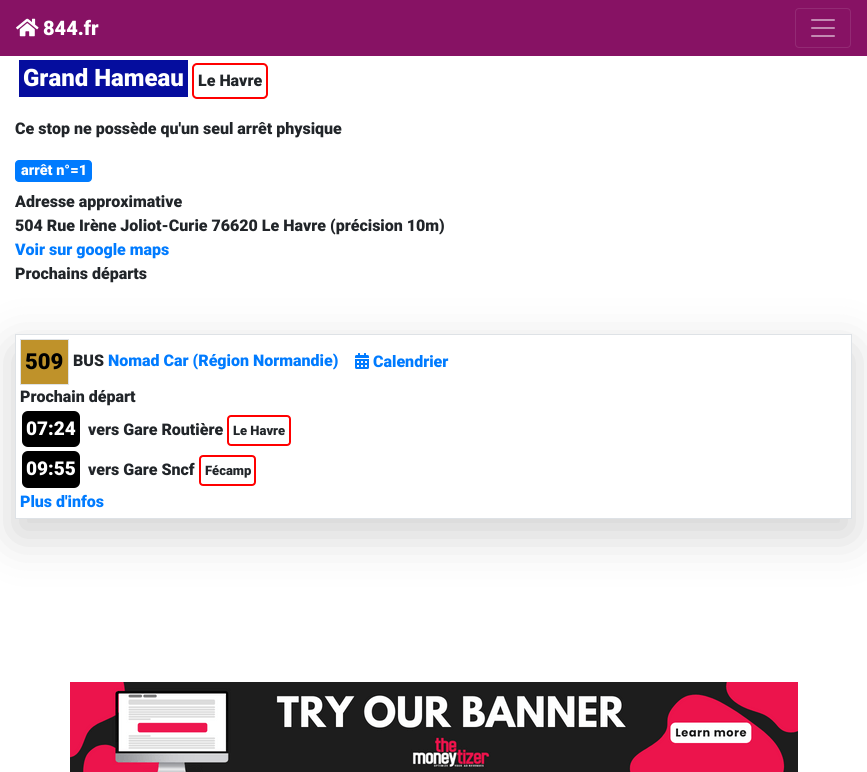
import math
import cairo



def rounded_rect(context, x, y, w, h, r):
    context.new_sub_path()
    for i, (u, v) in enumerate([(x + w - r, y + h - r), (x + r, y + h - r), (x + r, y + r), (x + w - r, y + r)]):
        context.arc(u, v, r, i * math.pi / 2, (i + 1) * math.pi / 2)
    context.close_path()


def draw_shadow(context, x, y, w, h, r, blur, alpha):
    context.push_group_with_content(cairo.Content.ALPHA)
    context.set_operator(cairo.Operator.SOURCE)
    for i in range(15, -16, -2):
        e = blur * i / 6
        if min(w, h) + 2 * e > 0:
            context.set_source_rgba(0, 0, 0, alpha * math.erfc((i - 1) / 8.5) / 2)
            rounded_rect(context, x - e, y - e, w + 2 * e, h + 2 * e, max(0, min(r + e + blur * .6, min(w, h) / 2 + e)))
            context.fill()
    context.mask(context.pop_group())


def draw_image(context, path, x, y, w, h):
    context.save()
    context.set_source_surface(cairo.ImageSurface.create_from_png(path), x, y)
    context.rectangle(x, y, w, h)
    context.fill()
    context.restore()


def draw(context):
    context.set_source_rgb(1, 1, 1)
    context.paint()
    context.set_source_rgb(135 / 255, 18 / 255, 100 / 255)
    context.rectangle(0, 0, 867, 56)
    context.fill()
    draw_image(context, "images/1.png", 16, 18, 23, 19)
    rounded_rect(context, 795.5, 8.5, 55, 39, 3.5)
    context.set_source_rgb(147 / 255, 42 / 255, 116 / 255)
    context.set_line_width(1)
    context.stroke()
    draw_image(context, "images/2.png", 811, 19, 24, 18)
    context.set_source_rgb(5 / 255, 13 / 255, 158 / 255)
    context.rectangle(19, 60, 169, 37)
    context.fill()
    rounded_rect(context, 193, 64, 74, 34, 4)
    context.set_source_rgb(1, 0, 0)
    context.set_line_width(2)
    context.stroke()
    context.set_source_rgb(0, 123 / 255, 1)
    rounded_rect(context, 15, 160, 77, 22, 4)
    context.fill()
    context.save()
    context.set_fill_rule(cairo.FillRule.EVEN_ODD)
    context.new_path()
    context.move_to(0, 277)
    context.line_to(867, 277)
    context.line_to(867, 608)
    context.line_to(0, 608)
    context.close_path()
    context.move_to(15, 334)
    context.line_to(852, 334)
    context.line_to(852, 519)
    context.line_to(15, 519)
    context.close_path()
    context.clip()
    context.set_source_rgb(0, 0, 0)
    draw_shadow(context, 15, 350, 837, 185, 0, 24, 0.18)
    context.restore()
    context.rectangle(15.5, 334.5, 836, 184)
    context.set_source_rgb(222 / 255, 226 / 255, 230 / 255)
    context.set_line_width(1)
    context.stroke()
    context.set_source_rgb(191 / 255, 146 / 255, 42 / 255)
    context.rectangle(20.5, 339.5, 48, 45)
    context.fill_preserve()
    context.set_source_rgb(222 / 255, 226 / 255, 230 / 255)
    context.stroke()
    draw_image(context, "images/3.png", 355, 353, 14, 16)
    context.set_source_rgb(0, 0, 0)
    rounded_rect(context, 22, 411, 58, 36, 6)
    context.fill()
    rounded_rect(context, 228, 416, 62, 29, 3)
    context.set_source_rgb(1, 0, 0)
    context.set_line_width(2)
    context.stroke()
    context.set_source_rgb(0, 0, 0)
    rounded_rect(context, 22, 451, 58, 37, 6)
    context.fill()
    rounded_rect(context, 200, 456, 55, 29, 3)
    context.set_source_rgb(1, 0, 0)
    context.stroke()
    draw_image(context, "images/4.png", 70, 682, 728, 90)
    context.select_font_face("Roboto Black")
    context.set_font_size(20)
    context.set_source_rgb(1, 1, 1)
    context.move_to(43, 35)
    context.show_text("844.fr")
    context.set_font_size(24)
    context.move_to(23, 86)
    context.show_text("Grand Hameau")
    context.set_font_size(16)
    context.set_source_rgb(33 / 255, 37 / 255, 41 / 255)
    context.move_to(198, 86)
    context.show_text("Le Havre")
    context.move_to(15, 134)
    context.show_text("Ce stop ne possède qu'un seul arrêt physique")
    context.set_font_size(14.5)
    context.set_source_rgb(1, 1, 1)
    context.move_to(21, 175)
    context.show_text("arrêt n°=1")
    context.set_font_size(16)
    context.set_source_rgb(33 / 255, 37 / 255, 41 / 255)
    context.move_to(15, 207)
    context.show_text("Adresse approximative")
    context.move_to(15, 231)
    context.show_text("504 Rue Irène Joliot-Curie 76620 Le Havre (précision 10m)")
    context.set_source_rgb(0, 123 / 255, 1)
    context.move_to(15, 255)
    context.show_text("Voir sur google maps")
    context.set_source_rgb(33 / 255, 37 / 255, 41 / 255)
    context.move_to(15, 279)
    context.show_text("Prochains départs")
    context.set_font_size(22)
    context.set_source_rgb(0, 0, 0)
    context.move_to(25, 369)
    context.show_text("509")
    context.set_font_size(16)
    context.set_source_rgb(33 / 255, 37 / 255, 41 / 255)
    context.move_to(73, 366)
    context.show_text("BUS")
    context.set_source_rgb(0, 123 / 255, 1)
    context.move_to(108, 366)
    context.show_text("Nomad Car (Région Normandie)")
    context.move_to(373, 367)
    context.show_text("Calendrier")
    context.set_source_rgb(33 / 255, 37 / 255, 41 / 255)
    context.move_to(20, 402)
    context.show_text("Prochain départ")
    context.set_font_size(19)
    context.set_source_rgb(1, 1, 1)
    context.move_to(26, 435)
    context.show_text("07:24")
    context.set_font_size(16)
    context.set_source_rgb(33 / 255, 37 / 255, 41 / 255)
    context.move_to(88, 435)
    context.show_text("vers Gare Routière")
    context.set_font_size(13)
    context.move_to(233, 435)
    context.show_text("Le Havre")
    context.set_font_size(19)
    context.set_source_rgb(1, 1, 1)
    context.move_to(26, 475)
    context.show_text("09:55")
    context.set_font_size(16)
    context.set_source_rgb(33 / 255, 37 / 255, 41 / 255)
    context.move_to(88, 475)
    context.show_text("vers Gare Sncf")
    context.set_font_size(13)
    context.move_to(205, 475)
    context.show_text("Fécamp")
    context.set_font_size(16)
    context.set_source_rgb(0, 123 / 255, 1)
    context.move_to(20, 507)
    context.show_text("Plus d'infos")


surface = cairo.ImageSurface(cairo.Format.RGB24, 867, 772)
context = cairo.Context(surface)
options = cairo.FontOptions()
options.set_hint_metrics(cairo.HintMetrics.OFF)
options.set_hint_style(cairo.HintStyle.NONE)
context.set_font_options(options)
context.set_miter_limit(4)
draw(context)
surface.write_to_png("out.png")
